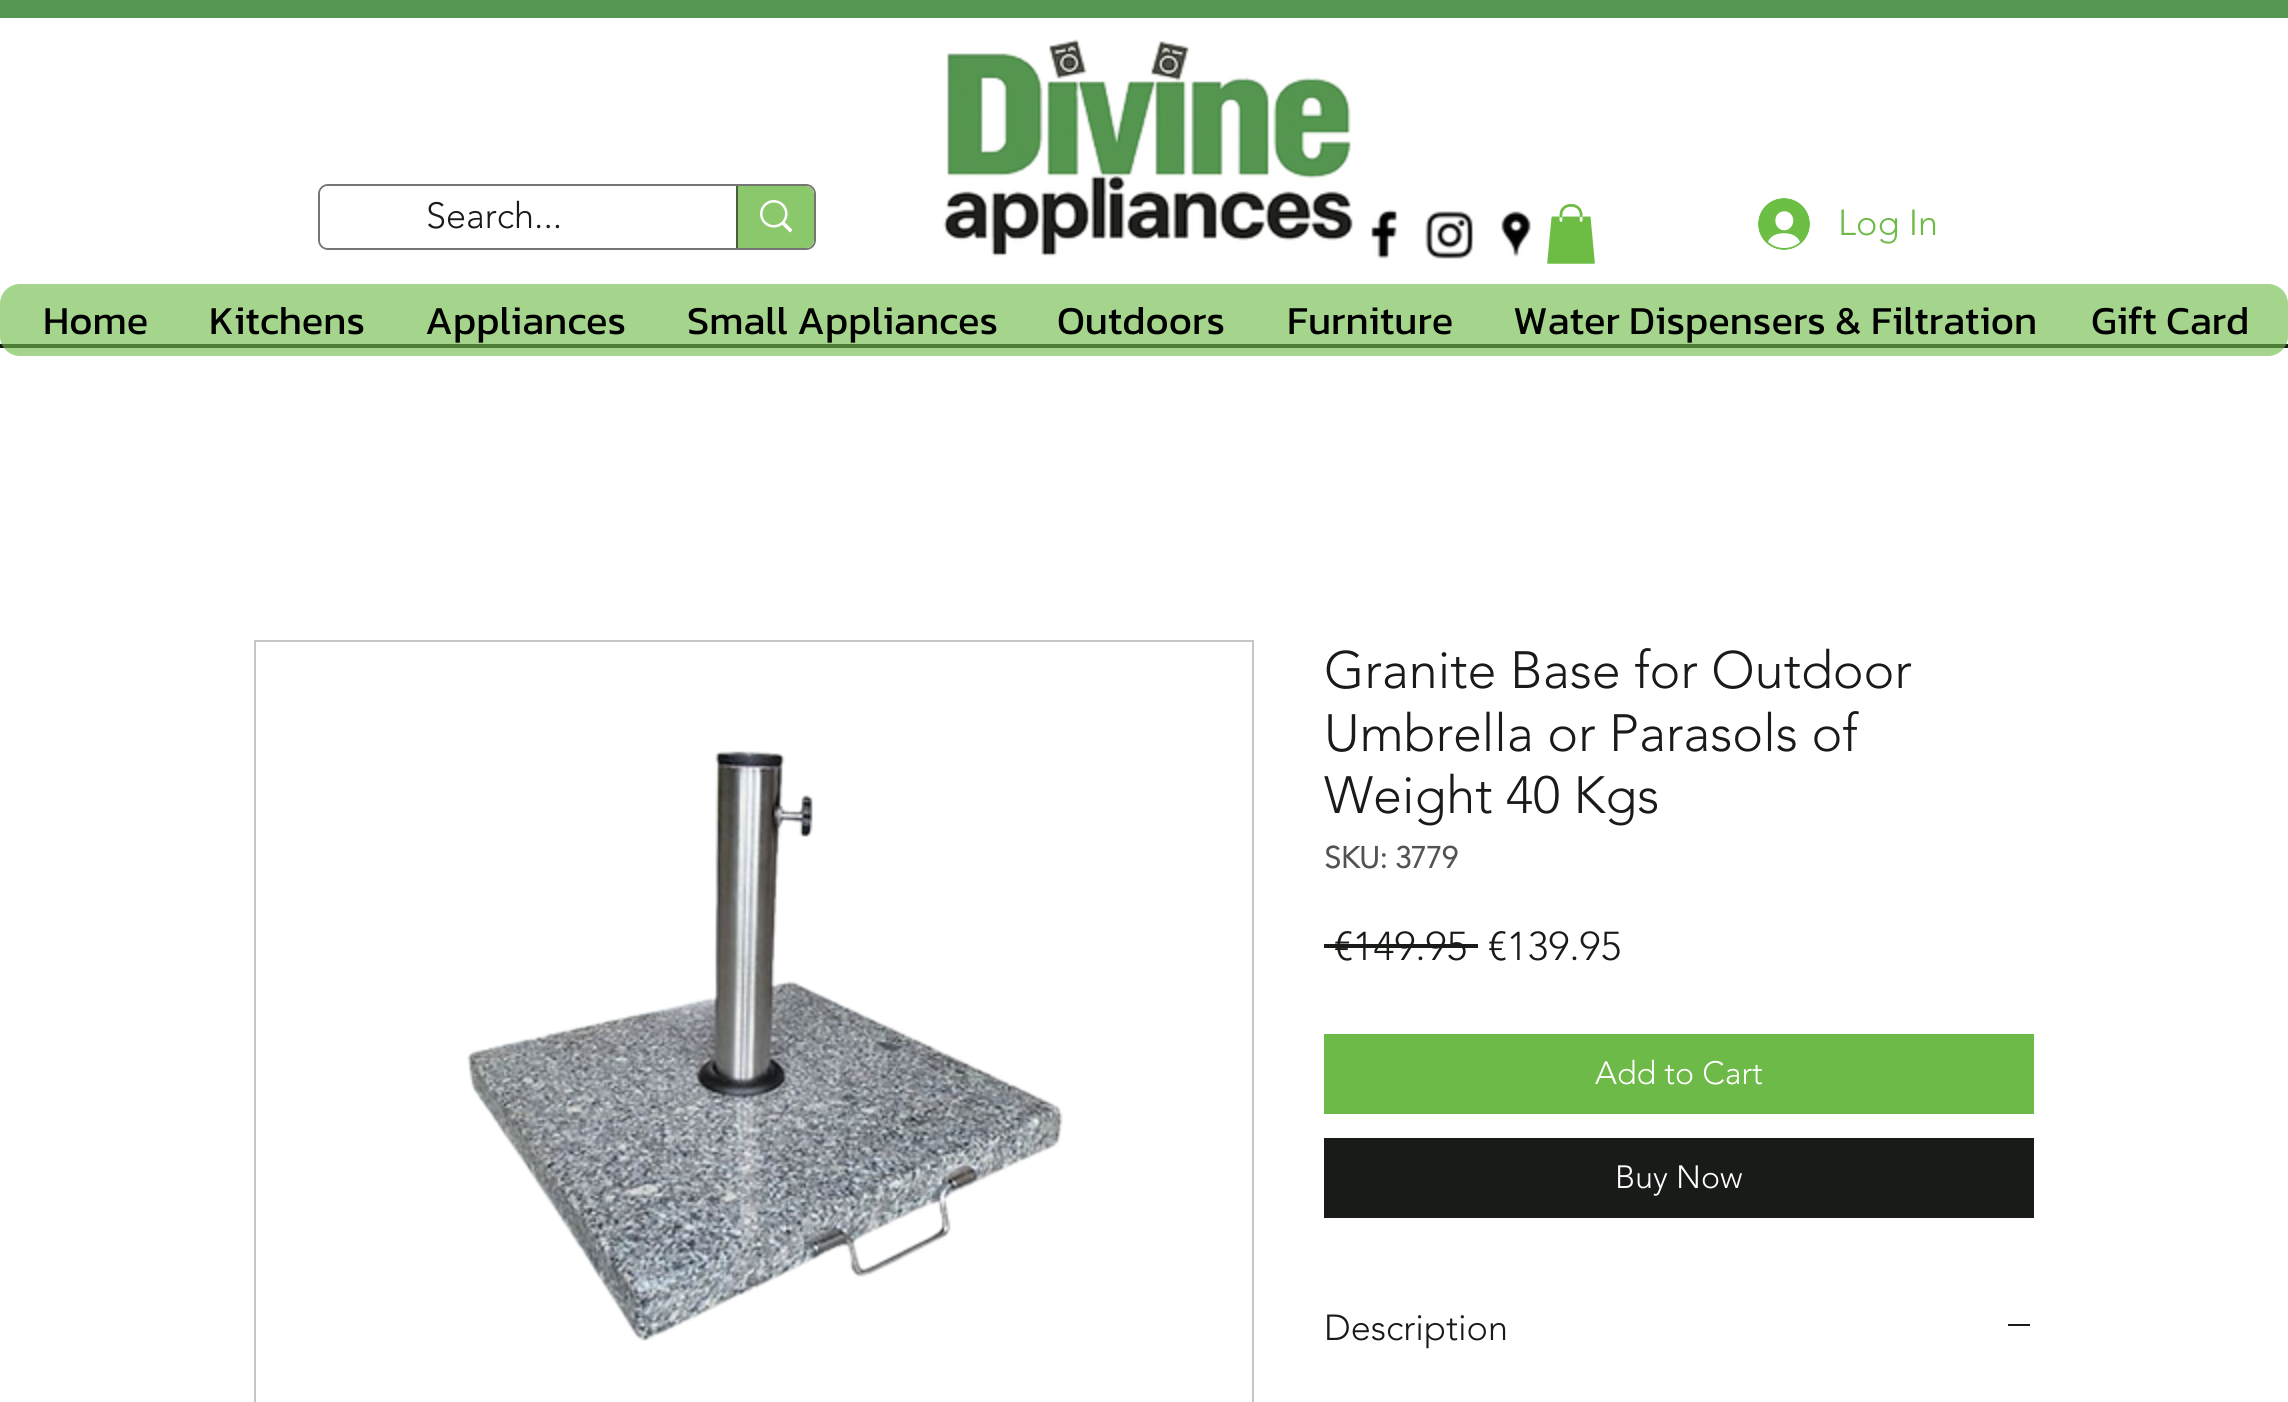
import math
import cairo



def rounded_rect(context, x, y, w, h, r):
    context.new_sub_path()
    for i, (u, v) in enumerate([(x + w - r, y + h - r), (x + r, y + h - r), (x + r, y + r), (x + w - r, y + r)]):
        context.arc(u, v, r, i * math.pi / 2, (i + 1) * math.pi / 2)
    context.close_path()


def draw_image(context, path, x, y, w, h):
    context.save()
    context.set_source_surface(cairo.ImageSurface.create_from_png(path), x, y)
    context.rectangle(x, y, w, h)
    context.fill()
    context.restore()


def draw(context):
    context.set_source_rgb(1, 1, 1)
    context.paint()
    context.set_source_rgb(86 / 255, 151 / 255, 82 / 255)
    context.rectangle(0, 0, 2288, 18)
    context.fill()
    rounded_rect(context, 319, 185, 496, 64, 9)
    context.set_source_rgb(117 / 255, 118 / 255, 116 / 255)
    context.stroke()
    context.set_source_rgb(1, 1, 1)
    rounded_rect(context, 320, 186, 494, 62, 8)
    context.fill()
    context.set_source_rgba(110 / 255, 186 / 255, 72 / 255, 0.8)
    context.new_path()
    context.move_to(736, 186)
    context.line_to(806, 186)
    context.curve_to(810.5, 186, 814, 189.5, 814, 194)
    context.line_to(814, 240)
    context.curve_to(814, 244.5, 810.5, 248, 806, 248)
    context.line_to(736, 248)
    context.close_path()
    context.fill()
    context.set_source_rgb(71 / 255, 96 / 255, 58 / 255)
    context.rectangle(736, 186, 2, 62)
    context.fill()
    draw_image(context, "images/1.png", 760, 200, 32, 33)
    draw_image(context, "images/2.png", 943, 39, 410, 218)
    draw_image(context, "images/3.png", 1371, 209, 27, 50)
    draw_image(context, "images/4.png", 1425, 211, 49, 48)
    draw_image(context, "images/5.png", 1501, 211, 30, 46)
    draw_image(context, "images/6.png", 1547, 204, 48, 60)
    draw_image(context, "images/7.png", 1758, 198, 52, 52)
    context.set_source_rgb(25 / 255, 27 / 255, 24 / 255)
    context.rectangle(0, 344, 2288, 4)
    context.fill()
    context.set_source_rgba(110 / 255, 186 / 255, 72 / 255, 0.62)
    rounded_rect(context, 0, 284, 2288, 72, 20)
    context.fill()
    context.rectangle(255, 641, 998, 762)
    context.set_source_rgb(198 / 255, 198 / 255, 197 / 255)
    context.stroke()
    draw_image(context, "images/8.png", 467, 751, 596, 590)
    context.set_source_rgb(25 / 255, 27 / 255, 24 / 255)
    context.rectangle(1324, 944, 154, 4)
    context.fill()
    context.set_source_rgb(110 / 255, 186 / 255, 72 / 255)
    context.rectangle(1324, 1034, 710, 80)
    context.fill()
    context.set_source_rgb(25 / 255, 27 / 255, 24 / 255)
    context.rectangle(1324, 1138, 710, 80)
    context.fill()
    context.rectangle(2008, 1324, 22, 2)
    context.fill()
    context.select_font_face("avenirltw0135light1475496 Light")
    context.set_font_size(36)
    context.move_to(426, 228)
    context.show_text("Search...")
    context.set_source_rgb(110 / 255, 186 / 255, 72 / 255)
    context.move_to(1838, 235)
    context.show_text("Log In")
    context.select_font_face("Kanit")
    context.set_font_size(40)
    context.set_source_rgb(0, 0, 0)
    context.move_to(43, 334)
    context.show_text("Home")
    context.move_to(209, 334)
    context.show_text("Kitchens")
    context.move_to(425, 334)
    context.show_text("Appliances")
    context.move_to(687, 334)
    context.show_text("Small Appliances")
    context.move_to(1057, 334)
    context.show_text("Outdoors")
    context.move_to(1287, 334)
    context.show_text("Furniture")
    context.move_to(1513, 334)
    context.show_text("Water Dispensers & Filtration")
    context.move_to(2091, 334)
    context.show_text("Gift Card")
    context.select_font_face("avenirltw0135light1475496 Light")
    context.set_font_size(52)
    context.set_source_rgb(25 / 255, 27 / 255, 24 / 255)
    context.move_to(1324, 688)
    context.show_text("Granite Base for Outdoor")
    context.move_to(1324, 751)
    context.show_text("Umbrella or Parasols of")
    context.move_to(1324, 813)
    context.show_text("Weight 40 Kgs")
    context.select_font_face("avenirltw0135light1475496", cairo.FontSlant.NORMAL, cairo.FontWeight.BOLD)
    context.set_font_size(30)
    context.set_source_rgb(83 / 255, 84 / 255, 82 / 255)
    context.move_to(1324, 868)
    context.show_text("SKU: 3779")
    context.select_font_face("avenirltw0135light1475496 Light")
    context.set_font_size(40)
    context.set_source_rgb(25 / 255, 27 / 255, 24 / 255)
    context.move_to(1334, 960)
    context.show_text("€149.95")
    context.move_to(1488, 960)
    context.show_text("€139.95")
    context.set_font_size(32)
    context.set_source_rgb(1, 1, 1)
    context.move_to(1595, 1084)
    context.show_text("Add to Cart")
    context.move_to(1615, 1188)
    context.show_text("Buy Now")
    context.set_font_size(36)
    context.set_source_rgb(25 / 255, 27 / 255, 24 / 255)
    context.move_to(1324, 1340)
    context.show_text("Description")


surface = cairo.ImageSurface(cairo.Format.RGB24, 2288, 1402)
context = cairo.Context(surface)
options = cairo.FontOptions()
options.set_hint_metrics(cairo.HintMetrics.OFF)
options.set_hint_style(cairo.HintStyle.NONE)
context.set_font_options(options)
context.set_miter_limit(4)
draw(context)
surface.write_to_png("out.png")
